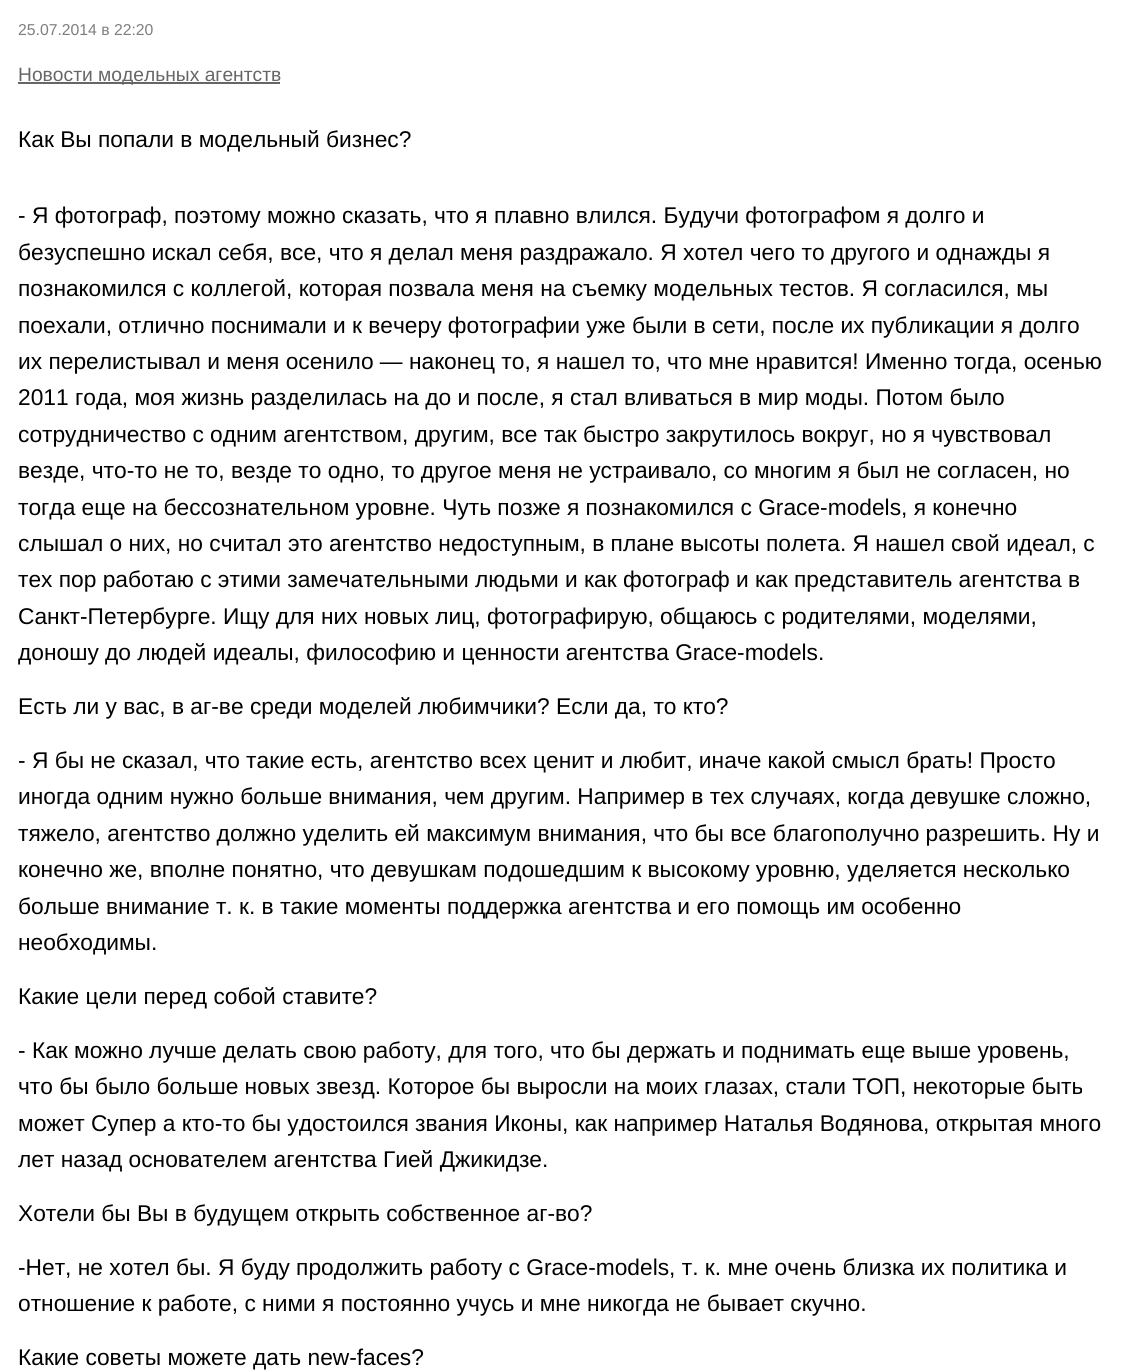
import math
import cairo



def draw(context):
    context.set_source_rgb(1, 1, 1)
    context.paint()
    context.set_source_rgb(102 / 255, 102 / 255, 102 / 255)
    context.rectangle(18, 82, 262, 2)
    context.fill()
    context.select_font_face("Liberation Sans")
    context.set_font_size(15.75)
    context.set_source_rgb(126 / 255, 126 / 255, 126 / 255)
    context.move_to(18, 35)
    context.show_text("25.07.2014 в 22:20")
    context.set_font_size(19.25)
    context.set_source_rgb(102 / 255, 102 / 255, 102 / 255)
    context.move_to(18, 81)
    context.show_text("Новости модельных агентств")
    context.set_font_size(22.75)
    context.set_source_rgb(0, 0, 0)
    context.move_to(18, 147)
    context.show_text("Как Вы попали в модельный бизнес?")
    context.move_to(18, 223)
    context.show_text("- Я фотограф, поэтому можно сказать, что я плавно влился. Будучи фотографом я долго и")
    context.move_to(18, 260)
    context.show_text("безуспешно искал себя, все, что я делал меня раздражало. Я хотел чего то другого и однажды я")
    context.move_to(18, 296)
    context.show_text("познакомился с коллегой, которая позвала меня на съемку модельных тестов. Я согласился, мы")
    context.move_to(18, 333)
    context.show_text("поехали, отлично поснимали и к вечеру фотографии уже были в сети, после их публикации я долго")
    context.move_to(18, 369)
    context.show_text("их перелистывал и меня осенило — наконец то, я нашел то, что мне нравится! Именно тогда, осенью")
    context.move_to(18, 405)
    context.show_text("2011 года, моя жизнь разделилась на до и после, я стал вливаться в мир моды. Потом было")
    context.move_to(18, 442)
    context.show_text("сотрудничество с одним агентством, другим, все так быстро закрутилось вокруг, но я чувствовал")
    context.move_to(18, 478)
    context.show_text("везде, что-то не то, везде то одно, то другое меня не устраивало, со многим я был не согласен, но")
    context.move_to(18, 515)
    context.show_text("тогда еще на бессознательном уровне. Чуть позже я познакомился с Grace-models, я конечно")
    context.move_to(18, 551)
    context.show_text("слышал о них, но считал это агентство недоступным, в плане высоты полета. Я нашел свой идеал, с")
    context.move_to(18, 587)
    context.show_text("тех пор работаю с этими замечательными людьми и как фотограф и как представитель агентства в")
    context.move_to(18, 624)
    context.show_text("Санкт-Петербурге. Ищу для них новых лиц, фотографирую, общаюсь с родителями, моделями,")
    context.move_to(18, 660)
    context.show_text("доношу до людей идеалы, философию и ценности агентства Grace-models.")
    context.move_to(18, 714)
    context.show_text("Есть ли у вас, в аг-ве среди моделей любимчики? Если да, то кто?")
    context.move_to(18, 768)
    context.show_text("- Я бы не сказал, что такие есть, агентство всех ценит и любит, иначе какой смысл брать! Просто")
    context.move_to(18, 804)
    context.show_text("иногда одним нужно больше внимания, чем другим. Например в тех случаях, когда девушке сложно,")
    context.move_to(18, 841)
    context.show_text("тяжело, агентство должно уделить ей максимум внимания, что бы все благополучно разрешить. Ну и")
    context.move_to(18, 877)
    context.show_text("конечно же, вполне понятно, что девушкам подошедшим к высокому уровню, уделяется несколько")
    context.move_to(18, 914)
    context.show_text("больше внимание т. к. в такие моменты поддержка агентства и его помощь им особенно")
    context.move_to(18, 950)
    context.show_text("необходимы.")
    context.move_to(18, 1004)
    context.show_text("Какие цели перед собой ставите?")
    context.move_to(18, 1058)
    context.show_text("- Как можно лучше делать свою работу, для того, что бы держать и поднимать еще выше уровень,")
    context.move_to(18, 1094)
    context.show_text("что бы было больше новых звезд. Которое бы выросли на моих глазах, стали ТОП, некоторые быть")
    context.move_to(18, 1131)
    context.show_text("может Супер а кто-то бы удостоился звания Иконы, как например Наталья Водянова, открытая много")
    context.move_to(18, 1167)
    context.show_text("лет назад основателем агентства Гией Джикидзе.")
    context.move_to(18, 1221)
    context.show_text("Хотели бы Вы в будущем открыть собственное аг-во?")
    context.move_to(18, 1275)
    context.show_text("-Нет, не хотел бы. Я буду продолжить работу с Grace-models, т. к. мне очень близка их политика и")
    context.move_to(18, 1311)
    context.show_text("отношение к работе, с ними я постоянно учусь и мне никогда не бывает скучно.")
    context.move_to(18, 1365)
    context.show_text("Какие советы можете дать new-faces?")


surface = cairo.ImageSurface(cairo.Format.RGB24, 1123, 1370)
context = cairo.Context(surface)
options = cairo.FontOptions()
options.set_hint_metrics(cairo.HintMetrics.OFF)
options.set_hint_style(cairo.HintStyle.NONE)
context.set_font_options(options)
context.set_miter_limit(4)
draw(context)
surface.write_to_png("out.png")
